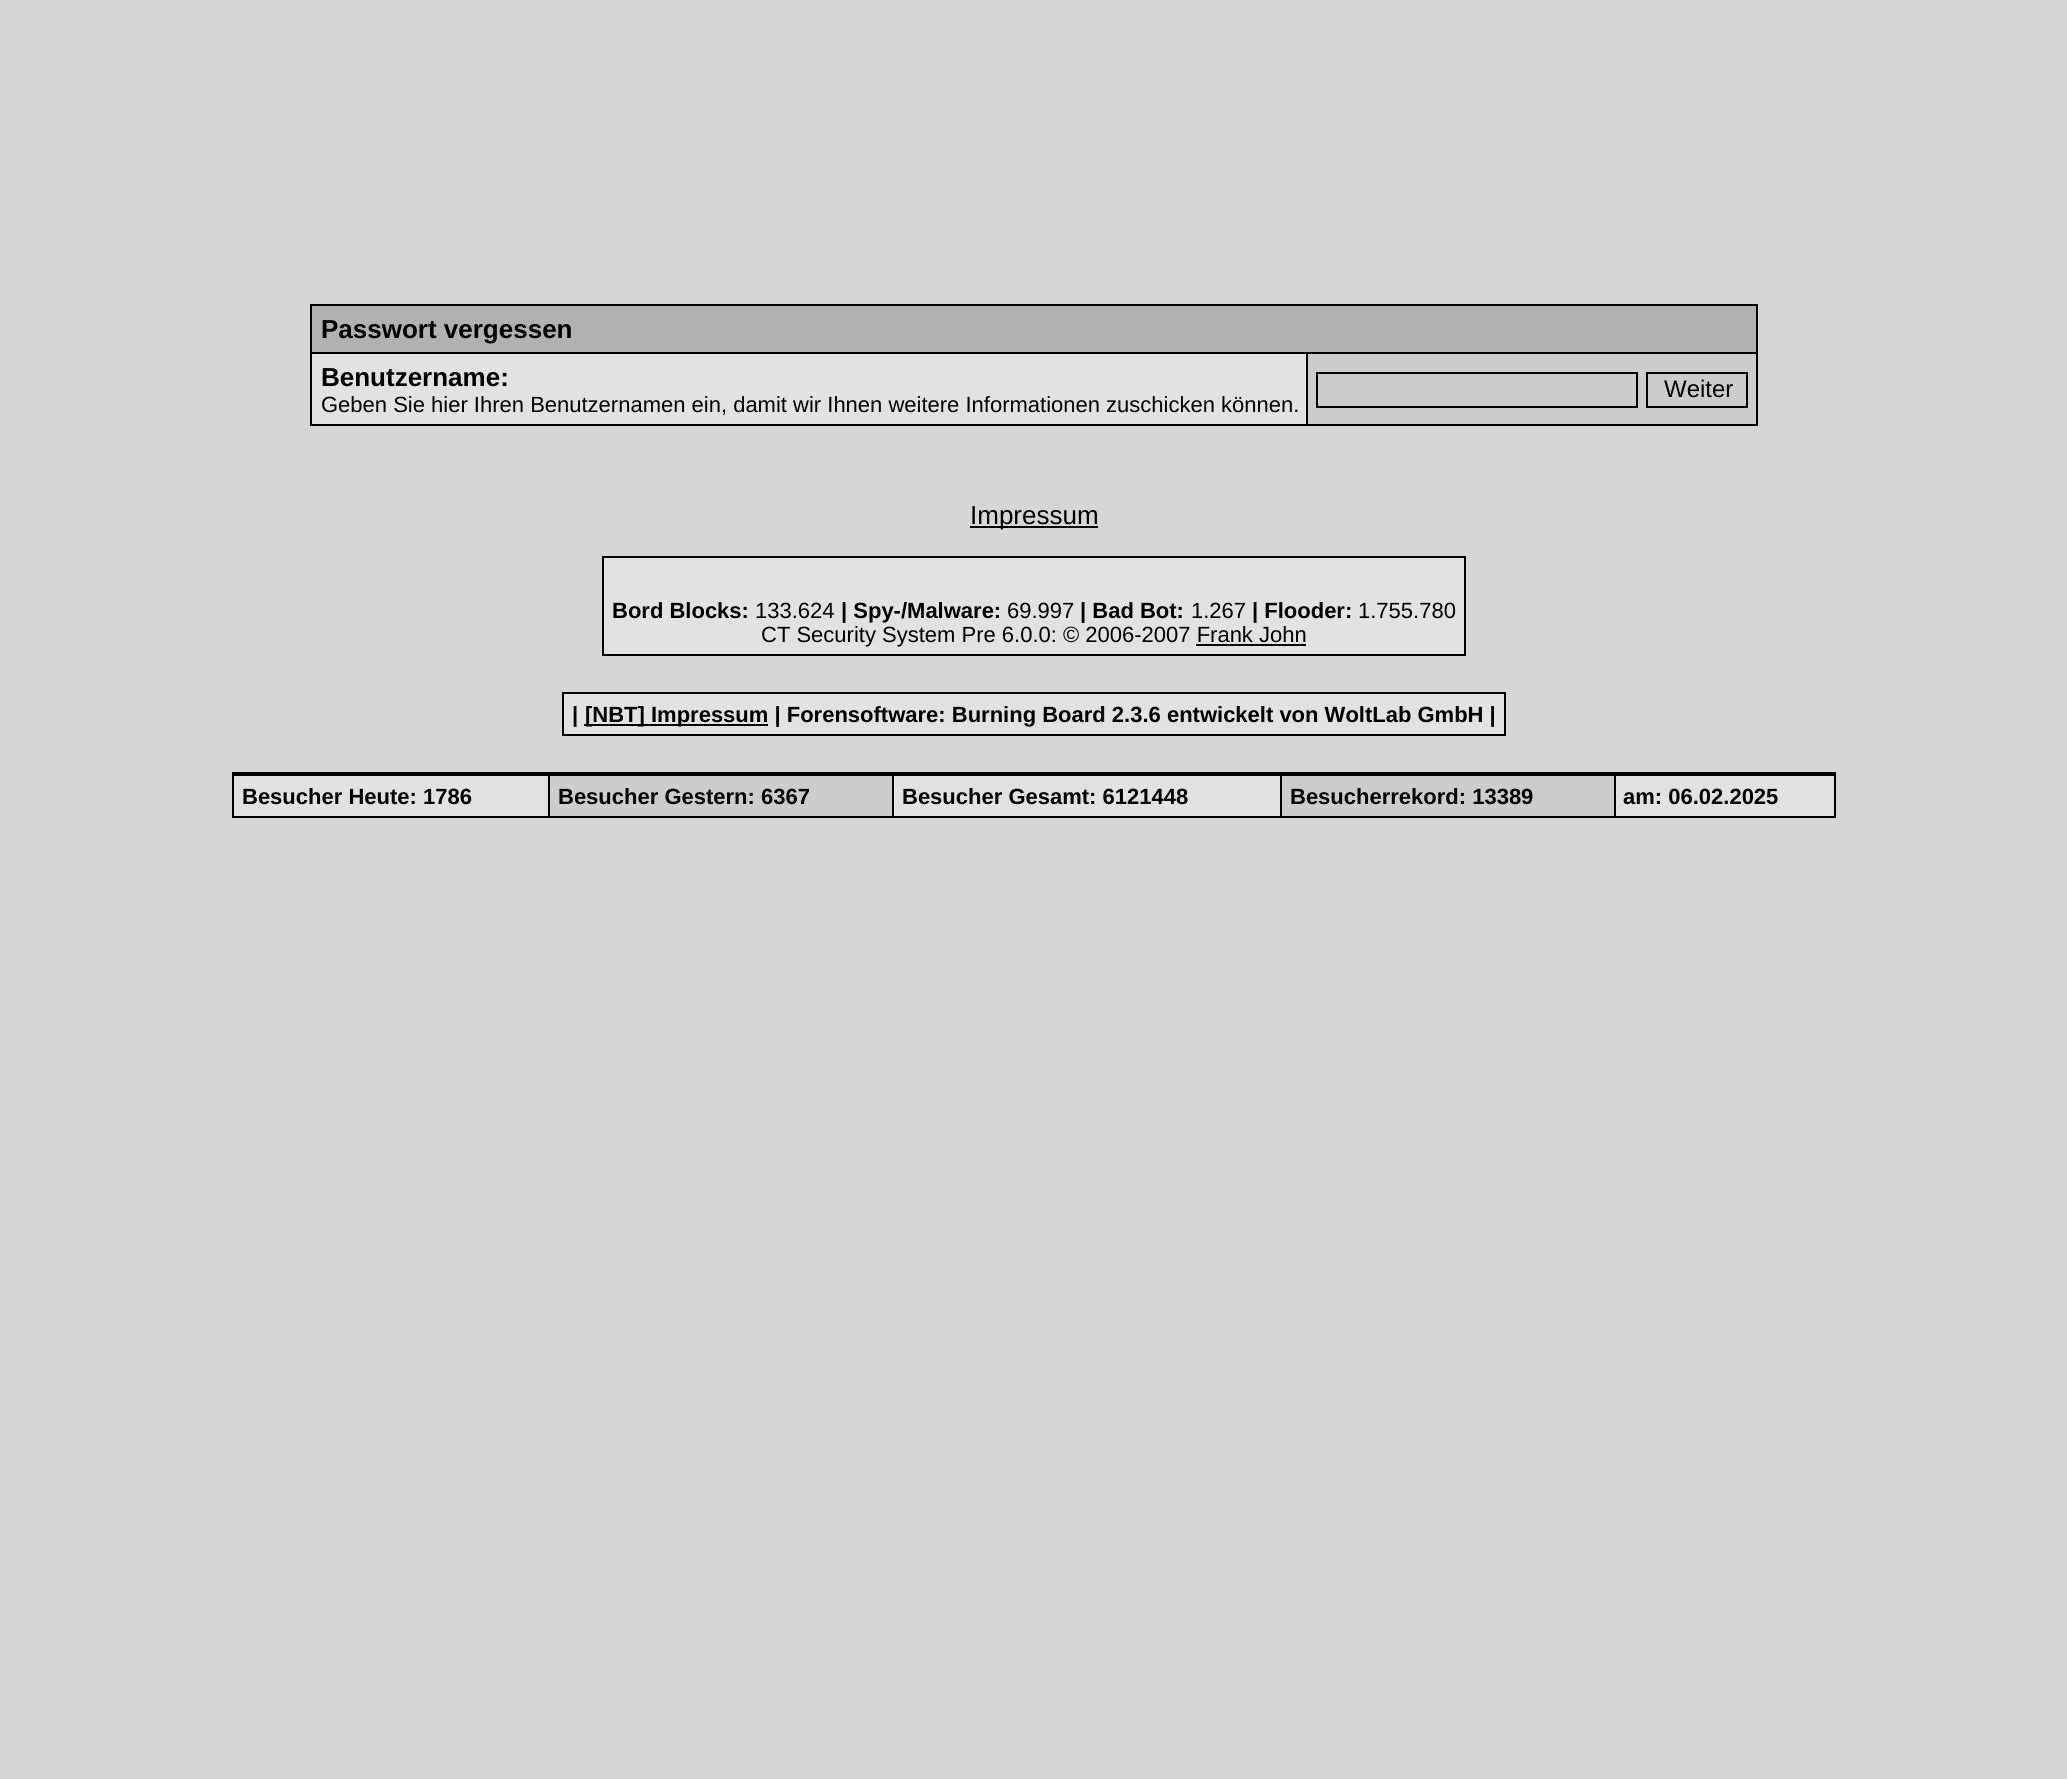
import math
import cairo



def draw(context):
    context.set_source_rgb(214 / 255, 214 / 255, 214 / 255)
    context.paint()
    context.set_source_rgb(0, 0, 0)
    context.rectangle(310, 304, 1448, 122)
    context.fill()
    context.set_source_rgb(177 / 255, 177 / 255, 177 / 255)
    context.rectangle(312, 306, 1444, 46)
    context.fill()
    context.set_source_rgb(226 / 255, 226 / 255, 226 / 255)
    context.rectangle(312, 354, 994, 70)
    context.fill()
    context.set_source_rgb(205 / 255, 205 / 255, 205 / 255)
    context.rectangle(1308, 354, 448, 70)
    context.fill()
    context.rectangle(1317, 373, 320, 34)
    context.set_source_rgb(0, 0, 0)
    context.stroke()
    context.rectangle(1647, 373, 100, 34)
    context.stroke()
    context.rectangle(970, 526, 128, 2)
    context.fill()
    context.rectangle(602, 556, 864, 100)
    context.fill()
    context.set_source_rgb(226 / 255, 226 / 255, 226 / 255)
    context.rectangle(604, 558, 860, 96)
    context.fill()
    context.set_source_rgb(0, 0, 0)
    context.rectangle(1196, 644, 110, 2)
    context.fill()
    context.rectangle(562, 692, 944, 44)
    context.fill()
    context.set_source_rgb(226 / 255, 226 / 255, 226 / 255)
    context.rectangle(564, 694, 940, 40)
    context.fill()
    context.set_source_rgb(0, 0, 0)
    context.rectangle(584, 724, 184, 2)
    context.fill()
    context.rectangle(232, 772, 1604, 46)
    context.fill()
    context.set_source_rgb(226 / 255, 226 / 255, 226 / 255)
    context.rectangle(234, 776, 314, 40)
    context.fill()
    context.set_source_rgb(205 / 255, 205 / 255, 205 / 255)
    context.rectangle(550, 776, 342, 40)
    context.fill()
    context.set_source_rgb(226 / 255, 226 / 255, 226 / 255)
    context.rectangle(894, 776, 386, 40)
    context.fill()
    context.set_source_rgb(205 / 255, 205 / 255, 205 / 255)
    context.rectangle(1282, 776, 332, 40)
    context.fill()
    context.set_source_rgb(226 / 255, 226 / 255, 226 / 255)
    context.rectangle(1616, 776, 218, 40)
    context.fill()
    context.select_font_face("Liberation Sans", cairo.FontSlant.NORMAL, cairo.FontWeight.BOLD)
    context.set_font_size(26)
    context.set_source_rgb(0, 0, 0)
    context.move_to(321, 338)
    context.show_text("Passwort vergessen")
    context.move_to(321, 386)
    context.show_text("Benutzername:")
    context.select_font_face("Liberation Sans")
    context.set_font_size(22)
    context.move_to(321, 412)
    context.show_text("Geben Sie hier Ihren Benutzernamen ein, damit wir Ihnen weitere Informationen zuschicken können.")
    context.set_font_size(24)
    context.move_to(1664, 397)
    context.show_text("Weiter")
    context.set_font_size(26)
    context.move_to(970, 524)
    context.show_text("Impressum")
    context.select_font_face("Liberation Sans", cairo.FontSlant.NORMAL, cairo.FontWeight.BOLD)
    context.set_font_size(22)
    context.move_to(612, 618)
    context.show_text("Bord Blocks:")
    context.select_font_face("Liberation Sans")
    context.move_to(755, 618)
    context.show_text("133.624")
    context.select_font_face("Liberation Sans", cairo.FontSlant.NORMAL, cairo.FontWeight.BOLD)
    context.move_to(841, 618)
    context.show_text("| Spy-/Malware:")
    context.select_font_face("Liberation Sans")
    context.move_to(1007, 618)
    context.show_text("69.997")
    context.select_font_face("Liberation Sans", cairo.FontSlant.NORMAL, cairo.FontWeight.BOLD)
    context.move_to(1080, 618)
    context.show_text("| Bad Bot:")
    context.select_font_face("Liberation Sans")
    context.move_to(1191, 618)
    context.show_text("1.267")
    context.select_font_face("Liberation Sans", cairo.FontSlant.NORMAL, cairo.FontWeight.BOLD)
    context.move_to(1252, 618)
    context.show_text("| Flooder:")
    context.select_font_face("Liberation Sans")
    context.move_to(1358, 618)
    context.show_text("1.755.780")
    context.move_to(761, 642)
    context.show_text("CT Security System Pre 6.0.0: © 2006-2007 Frank John")
    context.select_font_face("Liberation Sans", cairo.FontSlant.NORMAL, cairo.FontWeight.BOLD)
    context.move_to(572, 722)
    context.show_text("|")
    context.move_to(585, 722)
    context.show_text("[NBT] Impressum | Forensoftware: Burning Board 2.3.6 entwickelt von WoltLab GmbH |")
    context.move_to(242, 804)
    context.show_text("Besucher Heute: 1786")
    context.move_to(558, 804)
    context.show_text("Besucher Gestern: 6367")
    context.move_to(902, 804)
    context.show_text("Besucher Gesamt: 6121448")
    context.move_to(1290, 804)
    context.show_text("Besucherrekord: 13389")
    context.move_to(1623, 804)
    context.show_text("am: 06.02.2025")


surface = cairo.ImageSurface(cairo.Format.RGB24, 2067, 1779)
context = cairo.Context(surface)
options = cairo.FontOptions()
options.set_hint_metrics(cairo.HintMetrics.OFF)
options.set_hint_style(cairo.HintStyle.NONE)
context.set_font_options(options)
context.set_miter_limit(4)
draw(context)
surface.write_to_png("out.png")
